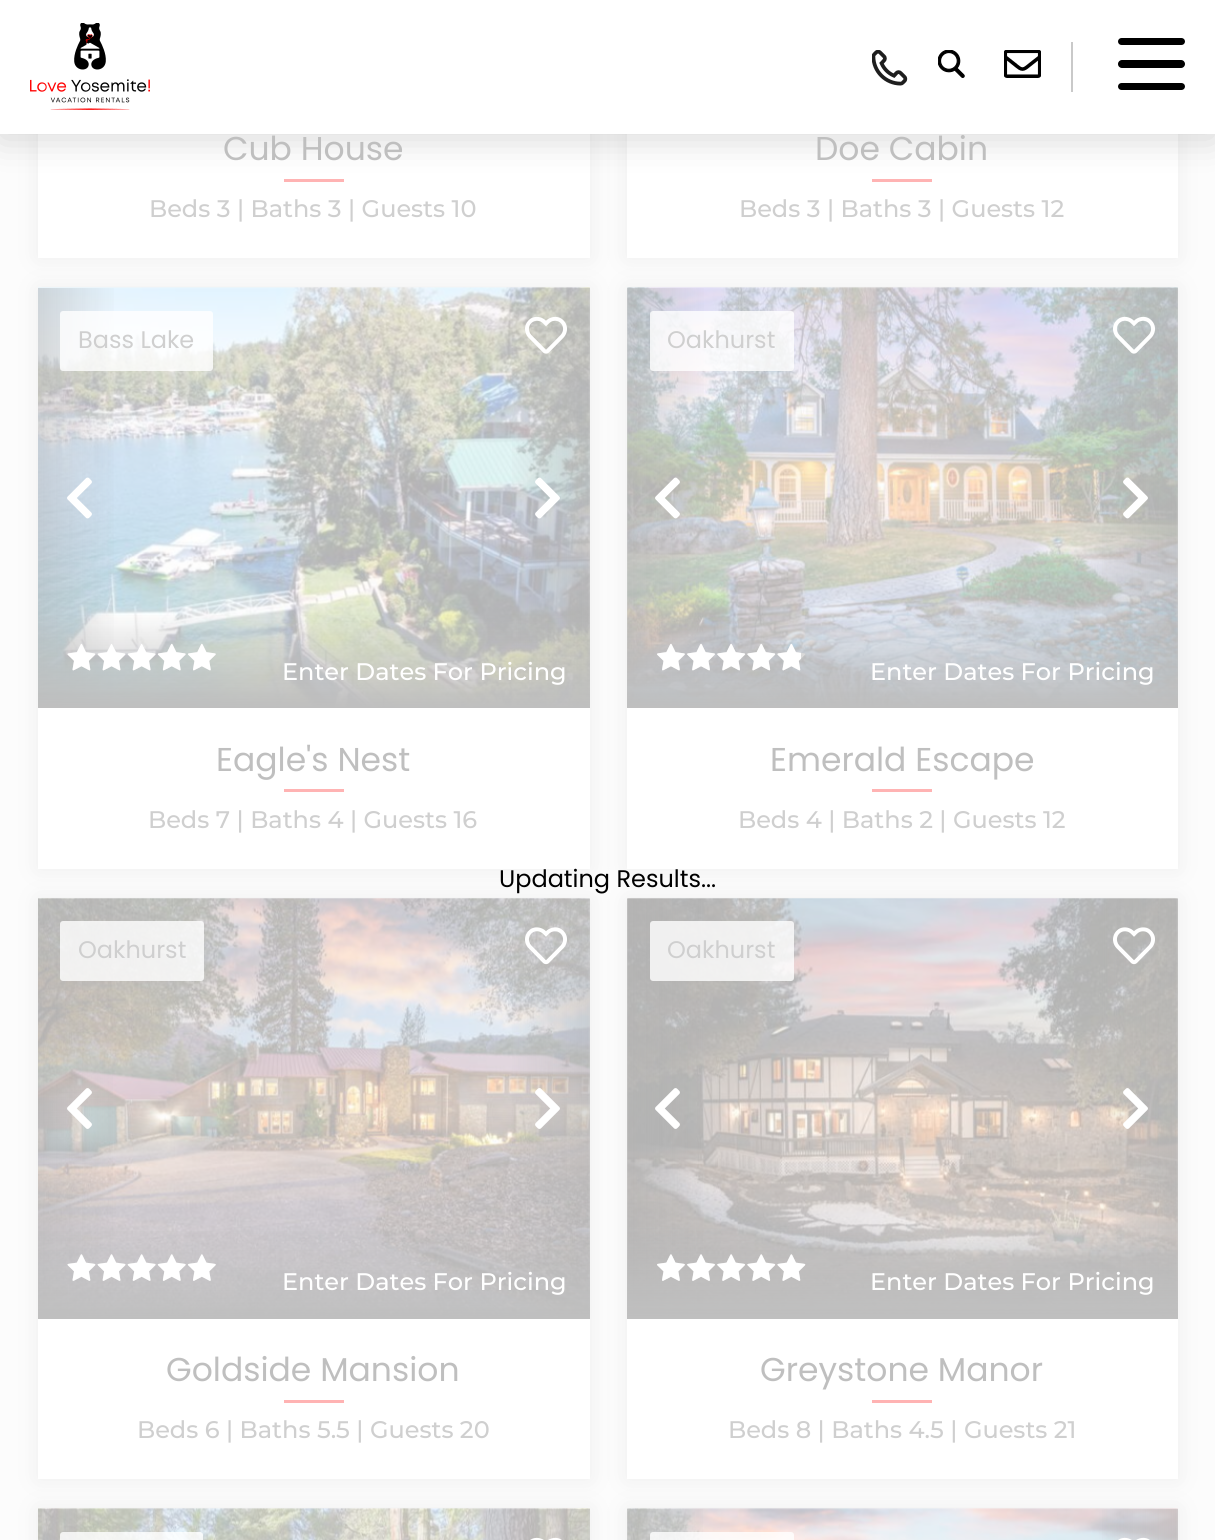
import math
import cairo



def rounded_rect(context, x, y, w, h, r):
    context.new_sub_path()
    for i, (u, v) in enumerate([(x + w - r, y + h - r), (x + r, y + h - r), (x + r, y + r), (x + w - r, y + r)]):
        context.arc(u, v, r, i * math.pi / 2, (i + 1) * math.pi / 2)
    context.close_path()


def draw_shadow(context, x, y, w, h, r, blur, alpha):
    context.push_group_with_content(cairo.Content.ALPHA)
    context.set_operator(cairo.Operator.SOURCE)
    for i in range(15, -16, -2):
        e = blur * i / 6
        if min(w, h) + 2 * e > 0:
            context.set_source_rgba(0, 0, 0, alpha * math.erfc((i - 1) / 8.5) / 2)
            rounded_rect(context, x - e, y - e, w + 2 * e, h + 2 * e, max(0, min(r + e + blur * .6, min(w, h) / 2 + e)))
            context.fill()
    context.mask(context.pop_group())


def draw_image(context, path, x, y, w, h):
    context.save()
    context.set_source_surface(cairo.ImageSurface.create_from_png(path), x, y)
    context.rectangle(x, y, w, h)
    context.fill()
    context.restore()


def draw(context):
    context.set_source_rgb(252 / 255, 252 / 255, 252 / 255)
    context.paint()
    context.set_source_rgb(179 / 255, 179 / 255, 179 / 255)
    draw_shadow(context, 38, -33, 552, 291, 0, 11, 0.2)
    context.set_source_rgb(1, 1, 1)
    context.rectangle(38, 134, 552, 124)
    context.fill()
    context.set_source_rgb(1, 179 / 255, 179 / 255)
    context.rectangle(284, 179, 60, 3)
    context.fill()
    context.set_source_rgb(179 / 255, 179 / 255, 179 / 255)
    draw_shadow(context, 627, -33, 551, 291, 0, 11, 0.2)
    context.set_source_rgb(1, 1, 1)
    context.rectangle(627, 134, 551, 124)
    context.fill()
    context.set_source_rgb(1, 179 / 255, 179 / 255)
    context.rectangle(872, 179, 60, 3)
    context.fill()
    context.set_source_rgb(0, 0, 0)
    draw_shadow(context, 0, 5, 1215, 133, 0, 19, 0.16)
    context.set_source_rgb(1, 1, 1)
    context.rectangle(0, 0, 1215, 134)
    context.fill()
    draw_image(context, "images/1.png", 30, 23, 120, 87)
    draw_image(context, "images/2.png", 872, 50, 36, 36)
    draw_image(context, "images/3.png", 938, 50, 27, 28)
    context.set_source_rgb(201 / 255, 201 / 255, 201 / 255)
    context.rectangle(1071, 42, 2, 50)
    context.fill()
    draw_image(context, "images/4.png", 1004, 50, 37, 28)
    context.set_source_rgb(0, 0, 0)
    rounded_rect(context, 1118, 38, 67, 7, 3.5)
    context.fill()
    rounded_rect(context, 1118, 60, 67, 8, 4)
    context.fill()
    rounded_rect(context, 1118, 83, 67, 7, 3.5)
    context.fill()
    context.set_source_rgb(179 / 255, 179 / 255, 179 / 255)
    draw_shadow(context, 38, 288, 552, 581, 0, 11, 0.2)
    context.set_source_rgb(1, 1, 1)
    context.rectangle(38, 288, 552, 581)
    context.fill()
    draw_image(context, "images/5.png", 38, 287, 552, 420)
    gradient = cairo.LinearGradient(37, 498, 120, 498)
    gradient.add_color_stop_rgba(0, 179 / 255, 179 / 255, 179 / 255, 0.5)
    gradient.add_color_stop_rgba(1, 179 / 255, 179 / 255, 179 / 255, 0)
    context.set_source(gradient)
    context.rectangle(38, 288, 76, 419)
    context.fill()
    draw_image(context, "images/6.png", 67, 477, 25, 42)
    gradient = cairo.LinearGradient(506, 498, 590, 498)
    gradient.add_color_stop_rgba(0, 179 / 255, 179 / 255, 179 / 255, 0)
    gradient.add_color_stop_rgba(1, 179 / 255, 179 / 255, 179 / 255, 0.5)
    context.set_source(gradient)
    context.rectangle(512, 288, 78, 419)
    context.fill()
    draw_image(context, "images/7.png", 535, 477, 25, 42)
    context.set_source_rgba(1, 1, 1, 0.8)
    rounded_rect(context, 60, 311, 153, 60, 3)
    context.fill()
    draw_image(context, "images/8.png", 525, 316, 42, 38)
    gradient = cairo.LinearGradient(314, 611, 314, 708)
    gradient.add_color_stop_rgba(0, 191 / 255, 191 / 255, 191 / 255, 0)
    gradient.add_color_stop_rgba(1, 191 / 255, 191 / 255, 191 / 255, 1)
    context.set_source(gradient)
    context.rectangle(38, 615, 552, 93)
    context.fill()
    draw_image(context, "images/9.png", 67, 643, 149, 28)
    draw_image(context, "images/10.png", 67, 643, 149, 28)
    context.set_source_rgb(1, 179 / 255, 179 / 255)
    context.rectangle(284, 789, 60, 3)
    context.fill()
    context.set_source_rgb(179 / 255, 179 / 255, 179 / 255)
    draw_shadow(context, 627, 288, 551, 581, 0, 11, 0.2)
    context.set_source_rgb(1, 1, 1)
    context.rectangle(627, 288, 551, 581)
    context.fill()
    draw_image(context, "images/11.png", 627, 287, 551, 420)
    gradient = cairo.LinearGradient(627, 498, 710, 498)
    gradient.add_color_stop_rgba(0, 179 / 255, 179 / 255, 179 / 255, 0.5)
    gradient.add_color_stop_rgba(1, 179 / 255, 179 / 255, 179 / 255, 0)
    context.set_source(gradient)
    context.rectangle(627, 288, 77, 419)
    context.fill()
    draw_image(context, "images/12.png", 655, 477, 25, 42)
    gradient = cairo.LinearGradient(1095, 498, 1178, 498)
    gradient.add_color_stop_rgba(0, 179 / 255, 179 / 255, 179 / 255, 0)
    gradient.add_color_stop_rgba(1, 179 / 255, 179 / 255, 179 / 255, 0.5)
    context.set_source(gradient)
    context.rectangle(1102, 288, 76, 419)
    context.fill()
    draw_image(context, "images/13.png", 1123, 477, 25, 42)
    context.set_source_rgba(1, 1, 1, 0.8)
    rounded_rect(context, 650, 311, 144, 60, 3)
    context.fill()
    draw_image(context, "images/14.png", 1113, 316, 42, 38)
    gradient = cairo.LinearGradient(902, 611, 902, 708)
    gradient.add_color_stop_rgba(0, 191 / 255, 191 / 255, 191 / 255, 0)
    gradient.add_color_stop_rgba(1, 191 / 255, 191 / 255, 191 / 255, 1)
    context.set_source(gradient)
    context.rectangle(627, 617, 551, 91)
    context.fill()
    draw_image(context, "images/15.png", 657, 643, 149, 28)
    draw_image(context, "images/16.png", 657, 643, 144, 28)
    context.set_source_rgb(1, 179 / 255, 179 / 255)
    context.rectangle(872, 789, 60, 3)
    context.fill()
    context.set_source_rgb(179 / 255, 179 / 255, 179 / 255)
    draw_shadow(context, 38, 899, 552, 580, 0, 11, 0.2)
    context.set_source_rgb(1, 1, 1)
    context.rectangle(38, 899, 552, 580)
    context.fill()
    draw_image(context, "images/17.png", 38, 898, 552, 420)
    gradient = cairo.LinearGradient(37, 1109, 120, 1109)
    gradient.add_color_stop_rgba(0, 179 / 255, 179 / 255, 179 / 255, 0.5)
    gradient.add_color_stop_rgba(1, 179 / 255, 179 / 255, 179 / 255, 0)
    context.set_source(gradient)
    context.rectangle(38, 899, 75, 419)
    context.fill()
    draw_image(context, "images/18.png", 67, 1088, 25, 41)
    gradient = cairo.LinearGradient(506, 1109, 590, 1109)
    gradient.add_color_stop_rgba(0, 179 / 255, 179 / 255, 179 / 255, 0)
    gradient.add_color_stop_rgba(1, 179 / 255, 179 / 255, 179 / 255, 0.5)
    context.set_source(gradient)
    context.rectangle(512, 899, 78, 419)
    context.fill()
    draw_image(context, "images/19.png", 535, 1088, 25, 41)
    context.set_source_rgba(1, 1, 1, 0.8)
    rounded_rect(context, 60, 921, 144, 60, 3)
    context.fill()
    draw_image(context, "images/20.png", 525, 927, 42, 38)
    gradient = cairo.LinearGradient(314, 1221, 314, 1319)
    gradient.add_color_stop_rgba(0, 191 / 255, 191 / 255, 191 / 255, 0)
    gradient.add_color_stop_rgba(1, 191 / 255, 191 / 255, 191 / 255, 1)
    context.set_source(gradient)
    context.rectangle(38, 1231, 552, 88)
    context.fill()
    draw_image(context, "images/21.png", 67, 1254, 149, 27)
    draw_image(context, "images/22.png", 67, 1254, 149, 27)
    context.set_source_rgb(1, 179 / 255, 179 / 255)
    context.rectangle(284, 1400, 60, 3)
    context.fill()
    context.set_source_rgb(179 / 255, 179 / 255, 179 / 255)
    draw_shadow(context, 627, 899, 551, 580, 0, 11, 0.2)
    context.set_source_rgb(1, 1, 1)
    context.rectangle(627, 899, 551, 580)
    context.fill()
    draw_image(context, "images/23.png", 627, 898, 551, 420)
    gradient = cairo.LinearGradient(627, 1109, 710, 1109)
    gradient.add_color_stop_rgba(0, 179 / 255, 179 / 255, 179 / 255, 0.5)
    gradient.add_color_stop_rgba(1, 179 / 255, 179 / 255, 179 / 255, 0)
    context.set_source(gradient)
    context.rectangle(627, 899, 76, 419)
    context.fill()
    draw_image(context, "images/24.png", 655, 1088, 25, 41)
    gradient = cairo.LinearGradient(1095, 1109, 1178, 1109)
    gradient.add_color_stop_rgba(0, 179 / 255, 179 / 255, 179 / 255, 0)
    gradient.add_color_stop_rgba(1, 179 / 255, 179 / 255, 179 / 255, 0.5)
    context.set_source(gradient)
    context.rectangle(1101, 899, 77, 419)
    context.fill()
    draw_image(context, "images/25.png", 1123, 1088, 25, 41)
    context.set_source_rgba(1, 1, 1, 0.8)
    rounded_rect(context, 650, 921, 144, 60, 3)
    context.fill()
    draw_image(context, "images/26.png", 1113, 927, 42, 38)
    gradient = cairo.LinearGradient(902, 1221, 902, 1319)
    gradient.add_color_stop_rgba(0, 191 / 255, 191 / 255, 191 / 255, 0)
    gradient.add_color_stop_rgba(1, 191 / 255, 191 / 255, 191 / 255, 1)
    context.set_source(gradient)
    context.rectangle(627, 1227, 551, 92)
    context.fill()
    draw_image(context, "images/27.png", 657, 1254, 149, 27)
    draw_image(context, "images/28.png", 657, 1254, 149, 27)
    context.set_source_rgb(1, 179 / 255, 179 / 255)
    context.rectangle(872, 1400, 60, 3)
    context.fill()
    context.set_source_rgb(179 / 255, 179 / 255, 179 / 255)
    draw_shadow(context, 38, 1509, 552, 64, 0, 11, 0.2)
    context.set_source_rgb(1, 1, 1)
    context.rectangle(38, 1509, 552, 31)
    context.fill()
    draw_image(context, "images/29.png", 38, 1508, 552, 32)
    gradient = cairo.LinearGradient(37, 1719, 120, 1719)
    gradient.add_color_stop_rgba(0, 179 / 255, 179 / 255, 179 / 255, 0.5)
    gradient.add_color_stop_rgba(1, 179 / 255, 179 / 255, 179 / 255, 0)
    context.set_source(gradient)
    context.rectangle(38, 1509, 71, 31)
    context.fill()
    gradient = cairo.LinearGradient(506, 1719, 590, 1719)
    gradient.add_color_stop_rgba(0, 179 / 255, 179 / 255, 179 / 255, 0)
    gradient.add_color_stop_rgba(1, 179 / 255, 179 / 255, 179 / 255, 0.5)
    context.set_source(gradient)
    context.rectangle(523, 1509, 67, 31)
    context.fill()
    context.set_source_rgba(1, 1, 1, 0.8)
    rounded_rect(context, 60, 1532, 143, 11, 3)
    context.fill()
    draw_image(context, "images/30.png", 530, 1537, 32, 3)
    context.set_source_rgb(179 / 255, 179 / 255, 179 / 255)
    draw_shadow(context, 627, 1509, 551, 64, 0, 11, 0.2)
    context.set_source_rgb(1, 1, 1)
    context.rectangle(627, 1509, 551, 31)
    context.fill()
    draw_image(context, "images/31.png", 627, 1508, 551, 32)
    gradient = cairo.LinearGradient(627, 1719, 710, 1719)
    gradient.add_color_stop_rgba(0, 179 / 255, 179 / 255, 179 / 255, 0.5)
    gradient.add_color_stop_rgba(1, 179 / 255, 179 / 255, 179 / 255, 0)
    context.set_source(gradient)
    context.rectangle(627, 1509, 76, 31)
    context.fill()
    gradient = cairo.LinearGradient(1095, 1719, 1178, 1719)
    gradient.add_color_stop_rgba(0, 179 / 255, 179 / 255, 179 / 255, 0)
    gradient.add_color_stop_rgba(1, 179 / 255, 179 / 255, 179 / 255, 0.5)
    context.set_source(gradient)
    context.rectangle(1102, 1509, 76, 31)
    context.fill()
    context.set_source_rgba(1, 1, 1, 0.8)
    rounded_rect(context, 650, 1532, 144, 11, 3)
    context.fill()
    draw_image(context, "images/32.png", 1118, 1537, 32, 3)
    context.select_font_face("Poppins")
    context.set_font_size(33)
    context.set_source_rgb(191 / 255, 191 / 255, 191 / 255)
    context.move_to(223, 160)
    context.show_text("Cub House")
    context.select_font_face("Montserrat Medium")
    context.set_font_size(24)
    context.set_source_rgb(207 / 255, 207 / 255, 207 / 255)
    context.move_to(149, 217)
    context.show_text("Beds 3 | Baths 3 | Guests 10")
    context.select_font_face("Poppins")
    context.set_font_size(33)
    context.set_source_rgb(191 / 255, 191 / 255, 191 / 255)
    context.move_to(815, 160)
    context.show_text("Doe Cabin")
    context.select_font_face("Montserrat Medium")
    context.set_font_size(24)
    context.set_source_rgb(207 / 255, 207 / 255, 207 / 255)
    context.move_to(739, 217)
    context.show_text("Beds 3 | Baths 3 | Guests 12")
    context.select_font_face("Poppins")
    context.move_to(78, 348)
    context.show_text("Bass Lake")
    context.select_font_face("Montserrat Medium")
    context.set_source_rgb(1, 1, 1)
    context.move_to(282, 680)
    context.show_text("Enter Dates For Pricing")
    context.select_font_face("Poppins")
    context.set_font_size(33)
    context.set_source_rgb(191 / 255, 191 / 255, 191 / 255)
    context.move_to(216, 771)
    context.show_text("Eagle's Nest")
    context.select_font_face("Montserrat Medium")
    context.set_font_size(24)
    context.set_source_rgb(207 / 255, 207 / 255, 207 / 255)
    context.move_to(148, 828)
    context.show_text("Beds 7 | Baths 4 | Guests 16")
    context.select_font_face("Poppins")
    context.move_to(667, 348)
    context.show_text("Oakhurst")
    context.select_font_face("Montserrat Medium")
    context.set_source_rgb(1, 1, 1)
    context.move_to(870, 680)
    context.show_text("Enter Dates For Pricing")
    context.select_font_face("Poppins")
    context.set_font_size(33)
    context.set_source_rgb(191 / 255, 191 / 255, 191 / 255)
    context.move_to(770, 771)
    context.show_text("Emerald Escape")
    context.select_font_face("Montserrat Medium")
    context.set_font_size(24)
    context.set_source_rgb(207 / 255, 207 / 255, 207 / 255)
    context.move_to(738, 828)
    context.show_text("Beds 4 | Baths 2 | Guests 12")
    context.select_font_face("Poppins")
    context.move_to(78, 958)
    context.show_text("Oakhurst")
    context.select_font_face("Montserrat Medium")
    context.set_source_rgb(1, 1, 1)
    context.move_to(282, 1290)
    context.show_text("Enter Dates For Pricing")
    context.select_font_face("Poppins")
    context.set_font_size(33)
    context.set_source_rgb(191 / 255, 191 / 255, 191 / 255)
    context.move_to(166, 1381)
    context.show_text("Goldside Mansion")
    context.select_font_face("Montserrat Medium")
    context.set_font_size(24)
    context.set_source_rgb(207 / 255, 207 / 255, 207 / 255)
    context.move_to(137, 1438)
    context.show_text("Beds 6 | Baths 5.5 | Guests 20")
    context.select_font_face("Poppins")
    context.move_to(667, 958)
    context.show_text("Oakhurst")
    context.select_font_face("Montserrat Medium")
    context.set_source_rgb(1, 1, 1)
    context.move_to(870, 1290)
    context.show_text("Enter Dates For Pricing")
    context.select_font_face("Poppins")
    context.set_font_size(33)
    context.set_source_rgb(191 / 255, 191 / 255, 191 / 255)
    context.move_to(760, 1381)
    context.show_text("Greystone Manor")
    context.select_font_face("Montserrat Medium")
    context.set_font_size(24)
    context.set_source_rgb(207 / 255, 207 / 255, 207 / 255)
    context.move_to(728, 1438)
    context.show_text("Beds 8 | Baths 4.5 | Guests 21")
    context.select_font_face("Poppins")
    context.set_source_rgb(0, 0, 0)
    context.move_to(499, 887)
    context.show_text("Updating Results...")


surface = cairo.ImageSurface(cairo.Format.RGB24, 1215, 1540)
context = cairo.Context(surface)
options = cairo.FontOptions()
options.set_hint_metrics(cairo.HintMetrics.OFF)
options.set_hint_style(cairo.HintStyle.NONE)
context.set_font_options(options)
context.set_miter_limit(4)
draw(context)
surface.write_to_png("out.png")
